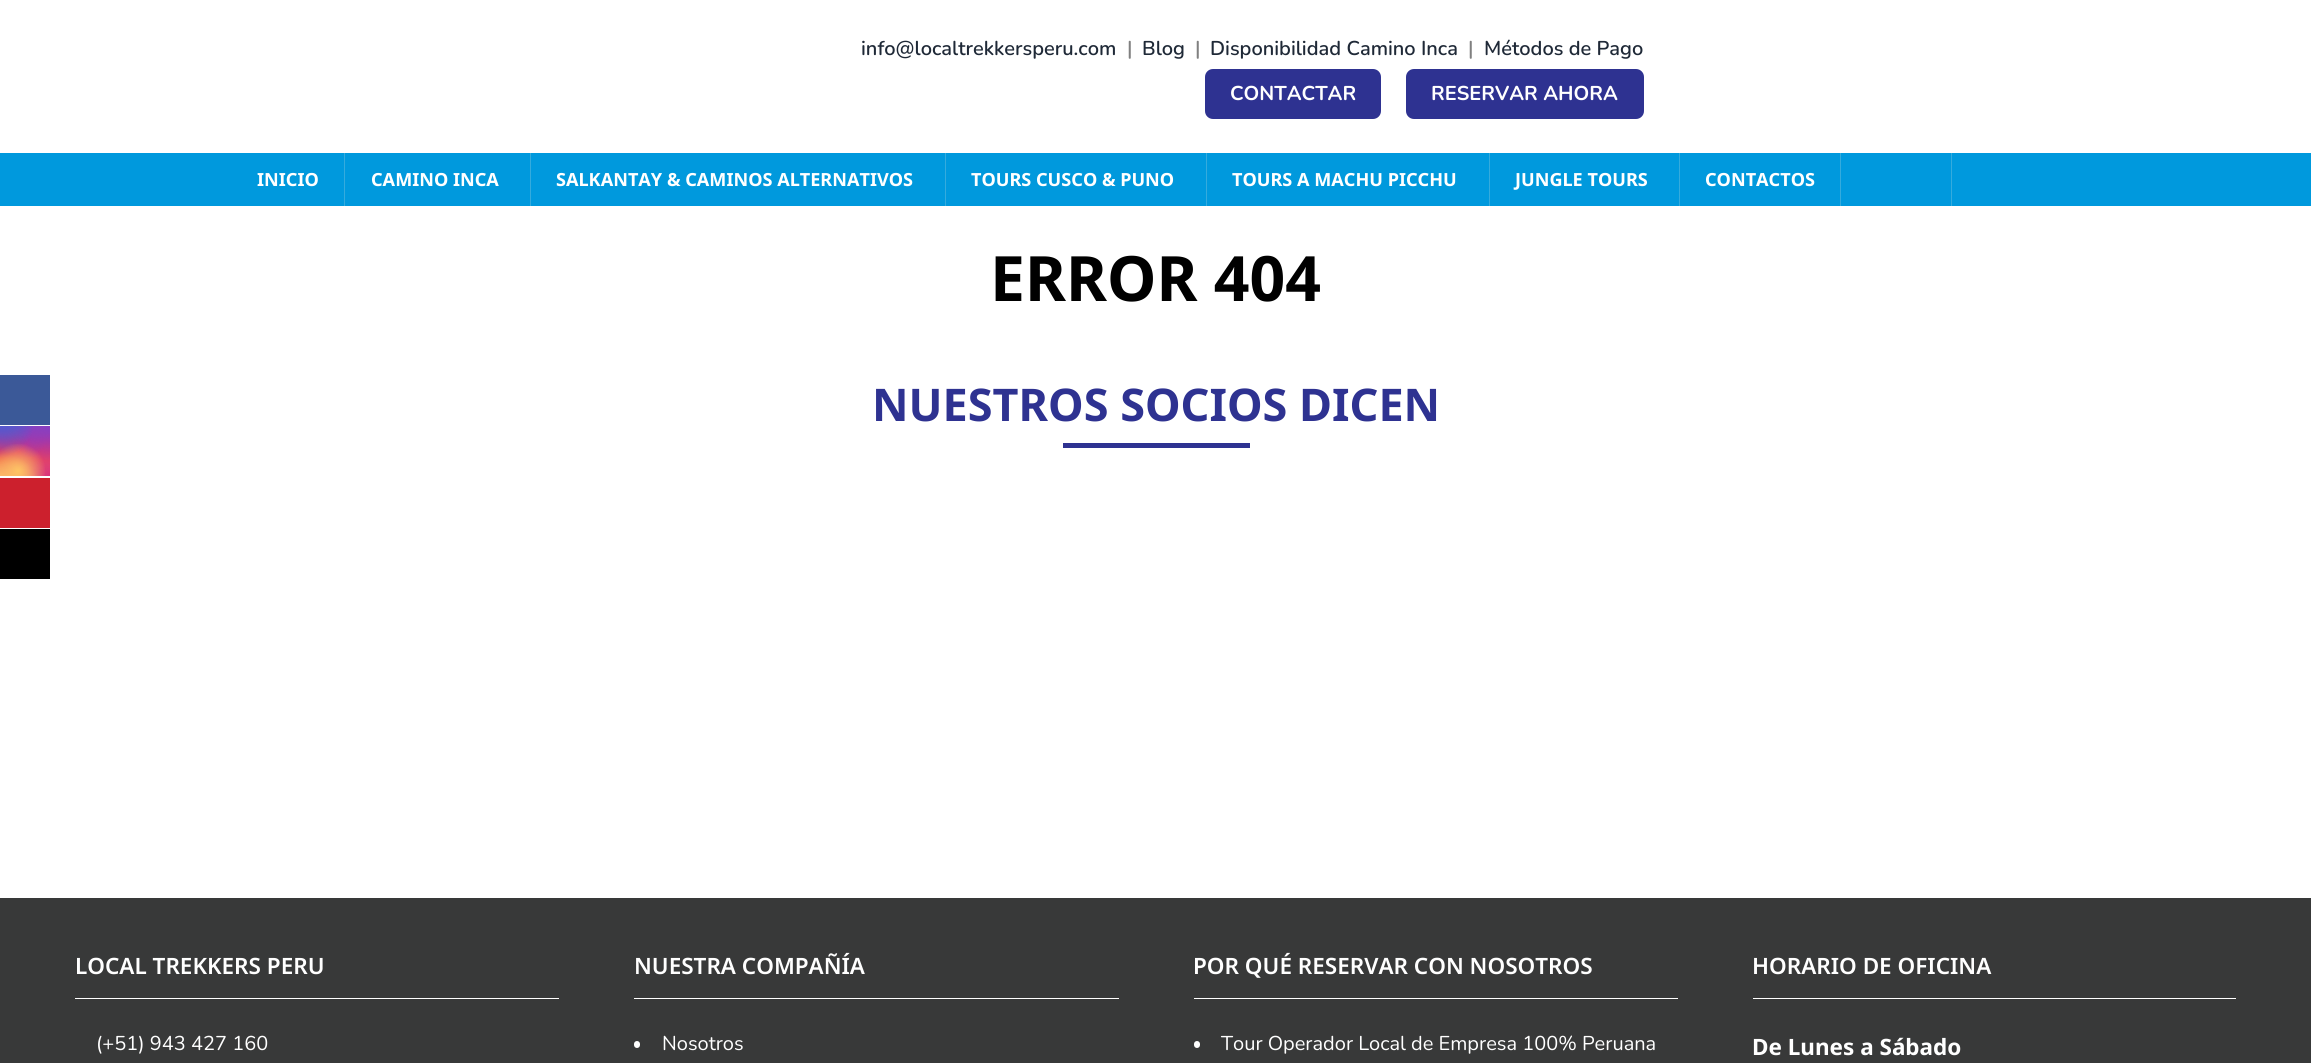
import math
import cairo



def rounded_rect(context, x, y, w, h, r):
    context.new_sub_path()
    for i, (u, v) in enumerate([(x + w - r, y + h - r), (x + r, y + h - r), (x + r, y + r), (x + w - r, y + r)]):
        context.arc(u, v, r, i * math.pi / 2, (i + 1) * math.pi / 2)
    context.close_path()


def draw(context):
    context.set_source_rgb(1, 1, 1)
    context.paint()
    context.set_source_rgb(46 / 255, 50 / 255, 145 / 255)
    rounded_rect(context, 1205, 69, 176, 50, 8)
    context.fill()
    rounded_rect(context, 1406, 69, 238, 50, 8)
    context.fill()
    context.set_source_rgb(0, 153 / 255, 221 / 255)
    context.rectangle(0, 153, 2311, 53)
    context.fill()
    context.set_source_rgb(53 / 255, 171 / 255, 221 / 255)
    context.rectangle(344, 153, 1, 53)
    context.fill()
    context.rectangle(530, 153, 1, 53)
    context.fill()
    context.rectangle(945, 153, 1, 53)
    context.fill()
    context.rectangle(1206, 153, 1, 53)
    context.fill()
    context.rectangle(1489, 153, 1, 53)
    context.fill()
    context.rectangle(1679, 153, 1, 53)
    context.fill()
    context.rectangle(1840, 153, 1, 53)
    context.fill()
    context.rectangle(1951, 153, 1, 53)
    context.fill()
    context.set_source_rgb(59 / 255, 89 / 255, 152 / 255)
    context.rectangle(0, 375, 50, 50)
    context.fill()
    gradient = cairo.LinearGradient(25, 426, 25, 476)
    gradient.add_color_stop_rgba(0, 101 / 255, 89 / 255, 202 / 255, 1)
    gradient.add_color_stop_rgba(0.3, 188 / 255, 49 / 255, 143 / 255, 1)
    gradient.add_color_stop_rgba(0.5, 227 / 255, 63 / 255, 95 / 255, 1)
    gradient.add_color_stop_rgba(0.7, 247 / 255, 118 / 255, 56 / 255, 1)
    gradient.add_color_stop_rgba(1, 254 / 255, 198 / 255, 109 / 255, 1)
    context.set_source(gradient)
    context.rectangle(0, 426, 50, 50)
    context.fill()
    gradient = cairo.RadialGradient(50, 476, 0, 50, 476, 71)
    gradient.add_color_stop_rgba(0, 217 / 255, 49 / 255, 122 / 255, 1)
    gradient.add_color_stop_rgba(1, 217 / 255, 49 / 255, 122 / 255, 0)
    context.set_source(gradient)
    context.rectangle(0, 426, 50, 50)
    context.fill()
    gradient = cairo.RadialGradient(0, 0, 0, 0, 0, 1)
    gradient.set_matrix(cairo.Matrix(1 / 42, 0, 0, 1 / 85, -1 * 30 / 42, -1 * 416 / 85))
    gradient.add_color_stop_rgba(0, 137 / 255, 61 / 255, 194 / 255, 1)
    gradient.add_color_stop_rgba(0.5, 137 / 255, 61 / 255, 194 / 255, 0)
    context.set_source(gradient)
    context.rectangle(12, 426, 36, 31)
    context.fill()
    gradient = cairo.RadialGradient(50, 426, 0, 50, 426, 71)
    gradient.add_color_stop_rgba(0, 137 / 255, 61 / 255, 194 / 255, 1)
    gradient.add_color_stop_rgba(0.5, 137 / 255, 61 / 255, 194 / 255, 0)
    context.set_source(gradient)
    context.rectangle(19, 426, 31, 34)
    context.fill()
    gradient = cairo.RadialGradient(0, 0, 0, 0, 0, 1)
    gradient.set_matrix(cairo.Matrix(1 / 57, 0, 0, 1 / 106, -1 * 10 / 57, -1 * 401 / 106))
    gradient.add_color_stop_rgba(0, 82 / 255, 88 / 255, 207 / 255, 1)
    gradient.add_color_stop_rgba(0.5, 82 / 255, 88 / 255, 207 / 255, 0)
    context.set_source(gradient)
    context.rectangle(0, 426, 33, 27)
    context.fill()
    gradient = cairo.RadialGradient(0, 0, 0, 0, 0, 1)
    gradient.set_matrix(cairo.Matrix(1 / 71, 0, 0, 1 / 88, -1 * 0 / 71, -1 * 414 / 88))
    gradient.add_color_stop_rgba(0, 82 / 255, 88 / 255, 207 / 255, 1)
    gradient.add_color_stop_rgba(0.5, 82 / 255, 88 / 255, 207 / 255, 0)
    context.set_source(gradient)
    context.rectangle(0, 426, 33, 31)
    context.fill()
    gradient = cairo.RadialGradient(0, 496, 0, 0, 496, 86)
    gradient.add_color_stop_rgba(0, 254 / 255, 197 / 255, 100 / 255, 1)
    gradient.add_color_stop_rgba(0.5, 254 / 255, 197 / 255, 100 / 255, 0)
    context.set_source(gradient)
    context.rectangle(0, 454, 37, 22)
    context.fill()
    gradient = cairo.RadialGradient(18, 471, 0, 18, 471, 56)
    gradient.add_color_stop_rgba(0, 254 / 255, 197 / 255, 100 / 255, 1)
    gradient.add_color_stop_rgba(0.5, 254 / 255, 197 / 255, 100 / 255, 0)
    context.set_source(gradient)
    context.rectangle(0, 444, 45, 32)
    context.fill()
    context.set_source_rgb(204 / 255, 32 / 255, 45 / 255)
    context.rectangle(0, 478, 50, 50)
    context.fill()
    context.set_source_rgb(0, 0, 0)
    context.rectangle(0, 529, 50, 50)
    context.fill()
    context.set_source_rgb(46 / 255, 50 / 255, 145 / 255)
    context.rectangle(1063, 443, 187, 5)
    context.fill()
    context.set_source_rgb(56 / 255, 57 / 255, 57 / 255)
    context.rectangle(0, 898, 2311, 165)
    context.fill()
    context.set_source_rgb(1, 1, 1)
    context.rectangle(75, 998, 484, 1)
    context.fill()
    context.rectangle(634, 998, 485, 1)
    context.fill()
    rounded_rect(context, 634, 1041, 6, 7, 3)
    context.fill()
    context.rectangle(1194, 998, 484, 1)
    context.fill()
    rounded_rect(context, 1194, 1041, 6, 7, 3)
    context.fill()
    context.rectangle(1753, 998, 483, 1)
    context.fill()
    context.select_font_face("Nunito SemiBold")
    context.set_font_size(20)
    context.set_source_rgb(31 / 255, 41 / 255, 55 / 255)
    context.move_to(861, 55)
    context.show_text("info@localtrekkersperu.com")
    context.set_source_rgb(128 / 255, 128 / 255, 128 / 255)
    context.move_to(1127, 55)
    context.show_text("|")
    context.set_source_rgb(31 / 255, 41 / 255, 55 / 255)
    context.move_to(1142, 55)
    context.show_text("Blog")
    context.set_source_rgb(128 / 255, 128 / 255, 128 / 255)
    context.move_to(1195, 55)
    context.show_text("|")
    context.set_source_rgb(31 / 255, 41 / 255, 55 / 255)
    context.move_to(1210, 55)
    context.show_text("Disponibilidad Camino Inca")
    context.set_source_rgb(128 / 255, 128 / 255, 128 / 255)
    context.move_to(1468, 55)
    context.show_text("|")
    context.set_source_rgb(31 / 255, 41 / 255, 55 / 255)
    context.move_to(1484, 55)
    context.show_text("Métodos de Pago")
    context.select_font_face("Nunito", cairo.FontSlant.NORMAL, cairo.FontWeight.BOLD)
    context.set_source_rgb(1, 1, 1)
    context.move_to(1230, 100)
    context.show_text("CONTACTAR")
    context.move_to(1431, 100)
    context.show_text("RESERVAR AHORA")
    context.select_font_face("Noto Sans", cairo.FontSlant.NORMAL, cairo.FontWeight.BOLD)
    context.set_font_size(18.1)
    context.move_to(257, 186)
    context.show_text("INICIO")
    context.move_to(371, 186)
    context.show_text("CAMINO INCA")
    context.move_to(556, 186)
    context.show_text("SALKANTAY & CAMINOS ALTERNATIVOS")
    context.move_to(971, 186)
    context.show_text("TOURS CUSCO & PUNO")
    context.move_to(1232, 186)
    context.show_text("TOURS A MACHU PICCHU")
    context.move_to(1515, 186)
    context.show_text("JUNGLE TOURS")
    context.move_to(1705, 186)
    context.show_text("CONTACTOS")
    context.set_font_size(62.5)
    context.set_source_rgb(0, 0, 0)
    context.move_to(990, 301)
    context.show_text("ERROR 404")
    context.set_font_size(45)
    context.set_source_rgb(46 / 255, 50 / 255, 145 / 255)
    context.move_to(872, 421)
    context.show_text("NUESTROS SOCIOS DICEN")
    context.select_font_face("Noto Sans SemiBold")
    context.set_font_size(22.5)
    context.set_source_rgb(1, 1, 1)
    context.move_to(75, 974)
    context.show_text("LOCAL TREKKERS PERU")
    context.select_font_face("Nunito")
    context.set_font_size(20)
    context.move_to(96, 1050)
    context.show_text("(+51) 943 427 160")
    context.select_font_face("Noto Sans SemiBold")
    context.set_font_size(22.5)
    context.move_to(634, 974)
    context.show_text("NUESTRA COMPAÑÍA")
    context.select_font_face("Nunito")
    context.set_font_size(20)
    context.move_to(662, 1050)
    context.show_text("Nosotros")
    context.select_font_face("Noto Sans SemiBold")
    context.set_font_size(22.5)
    context.move_to(1193, 974)
    context.show_text("POR QUÉ RESERVAR CON NOSOTROS")
    context.select_font_face("Nunito")
    context.set_font_size(20)
    context.move_to(1221, 1050)
    context.show_text("Tour Operador Local de Empresa 100% Peruana")
    context.select_font_face("Noto Sans SemiBold")
    context.set_font_size(22.5)
    context.move_to(1752, 974)
    context.show_text("HORARIO DE OFICINA")
    context.select_font_face("Noto Sans", cairo.FontSlant.NORMAL, cairo.FontWeight.BOLD)
    context.move_to(1752, 1055)
    context.show_text("De Lunes a Sábado")


surface = cairo.ImageSurface(cairo.Format.RGB24, 2311, 1063)
context = cairo.Context(surface)
options = cairo.FontOptions()
options.set_hint_metrics(cairo.HintMetrics.OFF)
options.set_hint_style(cairo.HintStyle.NONE)
context.set_font_options(options)
context.set_miter_limit(4)
draw(context)
surface.write_to_png("out.png")
